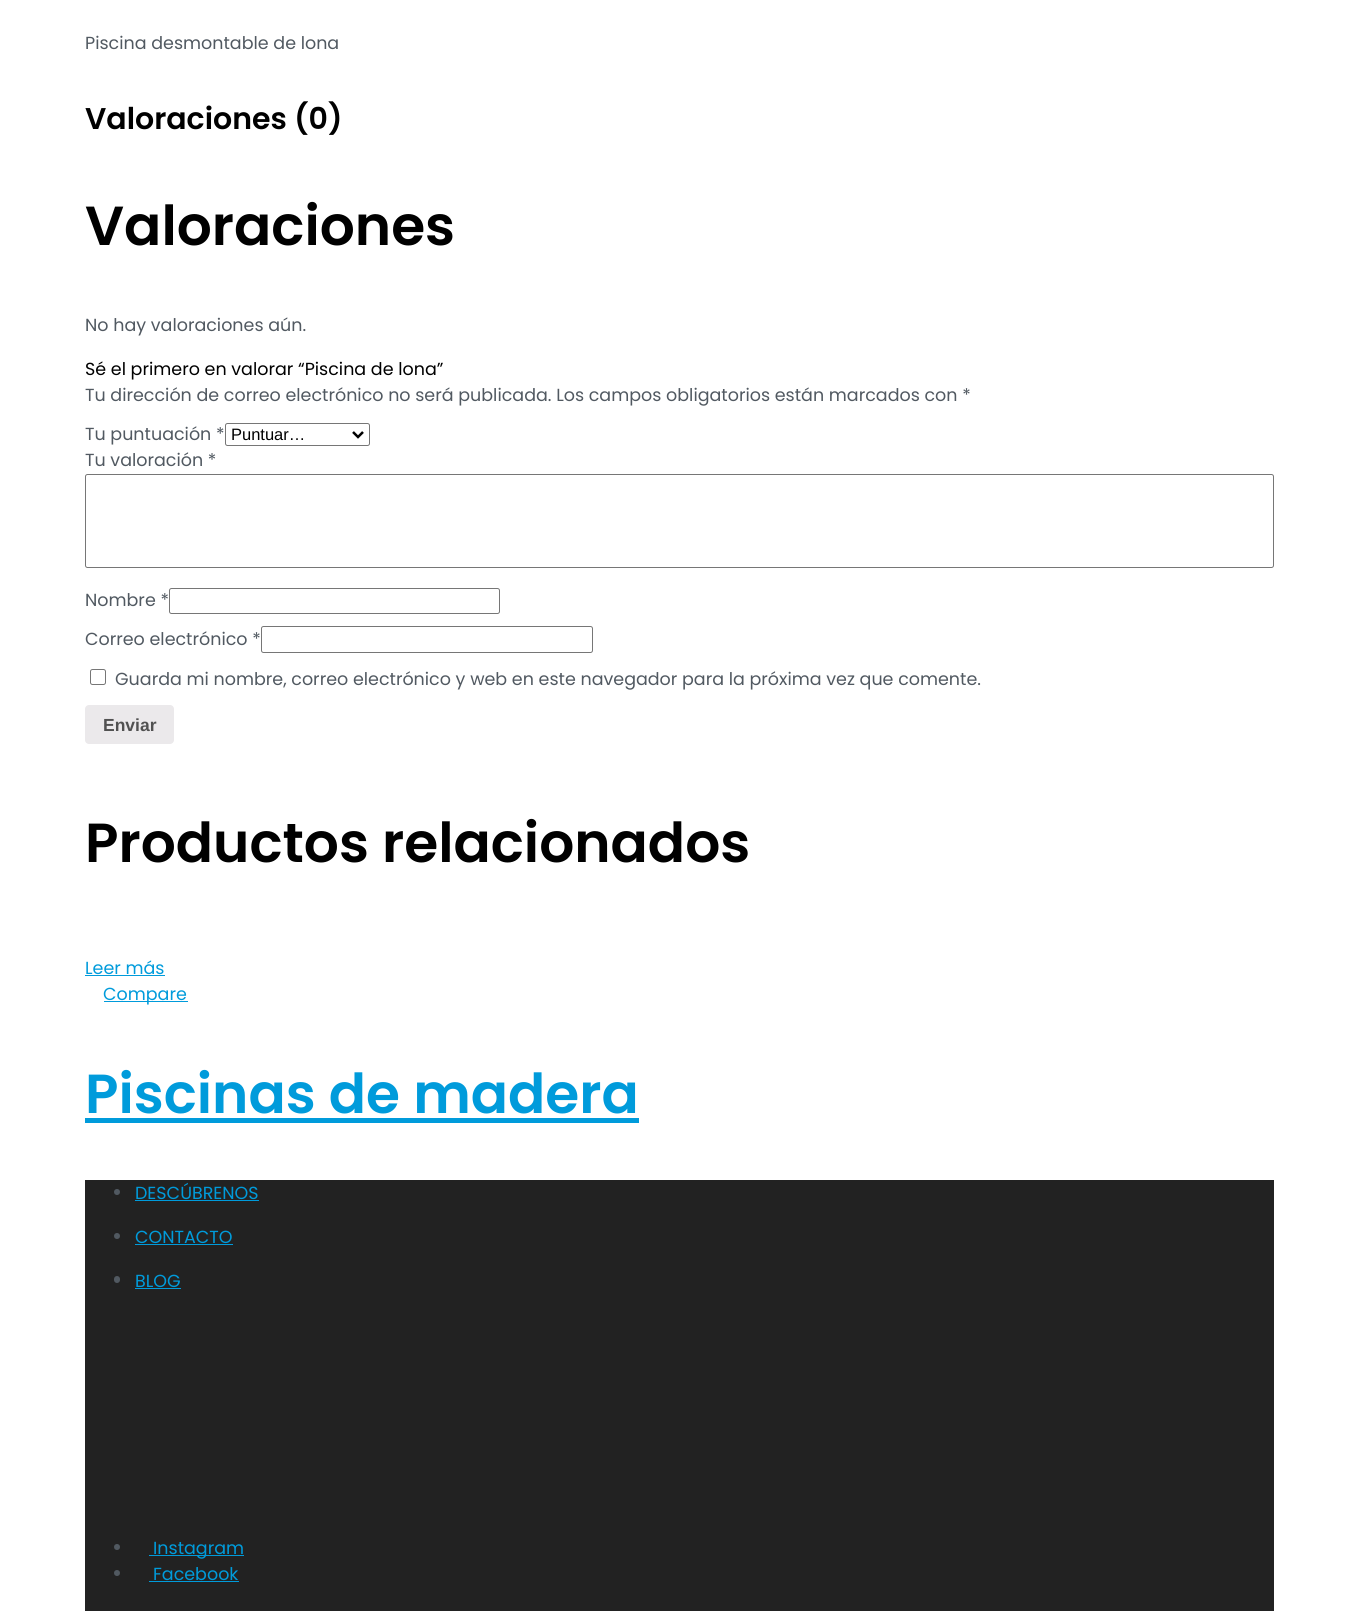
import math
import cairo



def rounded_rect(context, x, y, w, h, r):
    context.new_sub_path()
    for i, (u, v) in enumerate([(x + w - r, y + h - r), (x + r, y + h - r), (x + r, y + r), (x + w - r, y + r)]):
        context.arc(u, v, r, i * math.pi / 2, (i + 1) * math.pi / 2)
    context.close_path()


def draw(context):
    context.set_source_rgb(1, 1, 1)
    context.paint()
    rounded_rect(context, 225.5, 423.5, 144, 22, 2)
    context.set_source_rgb(118 / 255, 118 / 255, 118 / 255)
    context.set_line_width(1)
    context.stroke()
    context.new_path()
    context.move_to(353, 432)
    context.line_to(358, 437)
    context.line_to(363, 432)
    context.set_source_rgb(0, 0, 0)
    context.set_line_width(2.5)
    context.stroke()
    rounded_rect(context, 85.5, 474.5, 1188, 93, 2)
    context.set_source_rgb(118 / 255, 118 / 255, 118 / 255)
    context.set_line_width(1)
    context.stroke()
    rounded_rect(context, 169.5, 588.5, 330, 25, 2)
    context.stroke()
    rounded_rect(context, 261.5, 626.5, 331, 26, 2)
    context.stroke()
    rounded_rect(context, 90.5, 669.5, 15, 15, 2)
    context.stroke()
    context.set_source_rgb(235 / 255, 233 / 255, 235 / 255)
    rounded_rect(context, 85, 705, 89, 39, 4)
    context.fill()
    context.set_source_rgb(0, 155 / 255, 219 / 255)
    context.rectangle(85, 975, 80, 1)
    context.fill()
    context.rectangle(104, 1001, 84, 1)
    context.fill()
    context.rectangle(85, 1118, 554, 5)
    context.fill()
    context.set_source_rgb(34 / 255, 34 / 255, 34 / 255)
    context.rectangle(85, 1180, 1189, 431)
    context.fill()
    context.set_source_rgb(81 / 255, 89 / 255, 97 / 255)
    context.arc(117, 1192, 3, 0, 2 * math.pi)
    context.fill()
    context.set_source_rgb(0, 155 / 255, 219 / 255)
    context.rectangle(135, 1200, 124, 1)
    context.fill()
    context.set_source_rgb(81 / 255, 89 / 255, 97 / 255)
    context.arc(117, 1236, 3, 0, 2 * math.pi)
    context.fill()
    context.set_source_rgb(0, 155 / 255, 219 / 255)
    context.rectangle(135, 1244, 98, 1)
    context.fill()
    context.set_source_rgb(81 / 255, 89 / 255, 97 / 255)
    rounded_rect(context, 114, 1276, 6, 7, 3)
    context.fill()
    context.set_source_rgb(0, 155 / 255, 219 / 255)
    context.rectangle(135, 1288, 46, 1)
    context.fill()
    context.set_source_rgb(81 / 255, 89 / 255, 97 / 255)
    context.arc(117, 1547, 3, 0, 2 * math.pi)
    context.fill()
    context.set_source_rgb(0, 155 / 255, 219 / 255)
    context.rectangle(149, 1555, 95, 1)
    context.fill()
    context.set_source_rgb(81 / 255, 89 / 255, 97 / 255)
    context.arc(117, 1573, 3, 0, 2 * math.pi)
    context.fill()
    context.set_source_rgb(0, 155 / 255, 219 / 255)
    context.rectangle(149, 1581, 90, 1)
    context.fill()
    context.select_font_face("Poppins")
    context.set_font_size(17.5)
    context.set_source_rgb(81 / 255, 89 / 255, 97 / 255)
    context.move_to(85, 49)
    context.show_text("Piscina desmontable de lona")
    context.select_font_face("Poppins SemiBold")
    context.set_font_size(30)
    context.set_source_rgb(0, 0, 0)
    context.move_to(85, 129)
    context.show_text("Valoraciones (0)")
    context.set_font_size(55)
    context.move_to(85, 245)
    context.show_text("Valoraciones")
    context.select_font_face("Poppins")
    context.set_font_size(17.5)
    context.set_source_rgb(81 / 255, 89 / 255, 97 / 255)
    context.move_to(85, 331)
    context.show_text("No hay valoraciones aún.")
    context.set_source_rgb(0, 0, 0)
    context.move_to(85, 375)
    context.show_text("Sé el primero en valorar “Piscina de lona”")
    context.set_source_rgb(81 / 255, 89 / 255, 97 / 255)
    context.move_to(85, 401)
    context.show_text("Tu dirección de correo electrónico no será publicada. Los campos obligatorios están marcados con *")
    context.move_to(85, 440)
    context.show_text("Tu puntuación *")
    context.select_font_face("Liberation Sans")
    context.set_font_size(16.5)
    context.set_source_rgb(0, 0, 0)
    context.move_to(231, 440)
    context.show_text("Puntuar…")
    context.select_font_face("Poppins")
    context.set_font_size(17.5)
    context.set_source_rgb(81 / 255, 89 / 255, 97 / 255)
    context.move_to(85, 466)
    context.show_text("Tu valoración *")
    context.move_to(85, 606)
    context.show_text("Nombre *")
    context.move_to(85, 645)
    context.show_text("Correo electrónico *")
    context.move_to(115, 685)
    context.show_text("Guarda mi nombre, correo electrónico y web en este navegador para la próxima vez que comente.")
    context.select_font_face("Liberation Sans", cairo.FontSlant.NORMAL, cairo.FontWeight.BOLD)
    context.set_source_rgb(81 / 255, 81 / 255, 81 / 255)
    context.move_to(103, 731)
    context.show_text("Enviar")
    context.select_font_face("Poppins SemiBold")
    context.set_font_size(55)
    context.set_source_rgb(0, 0, 0)
    context.move_to(85, 862)
    context.show_text("Productos relacionados")
    context.select_font_face("Poppins")
    context.set_font_size(17.5)
    context.set_source_rgb(0, 155 / 255, 219 / 255)
    context.move_to(85, 974)
    context.show_text("Leer más")
    context.move_to(103, 1000)
    context.show_text("Compare")
    context.select_font_face("Poppins SemiBold")
    context.set_font_size(55)
    context.move_to(85, 1113)
    context.show_text("Piscinas de madera")
    context.select_font_face("Poppins")
    context.set_font_size(17.5)
    context.move_to(135, 1199)
    context.show_text("DESCÚBRENOS")
    context.move_to(135, 1243)
    context.show_text("CONTACTO")
    context.move_to(135, 1287)
    context.show_text("BLOG")
    context.move_to(153, 1554)
    context.show_text("Instagram")
    context.move_to(153, 1580)
    context.show_text("Facebook")


surface = cairo.ImageSurface(cairo.Format.RGB24, 1358, 1611)
context = cairo.Context(surface)
options = cairo.FontOptions()
options.set_hint_metrics(cairo.HintMetrics.OFF)
options.set_hint_style(cairo.HintStyle.NONE)
context.set_font_options(options)
context.set_miter_limit(4)
draw(context)
surface.write_to_png("out.png")
